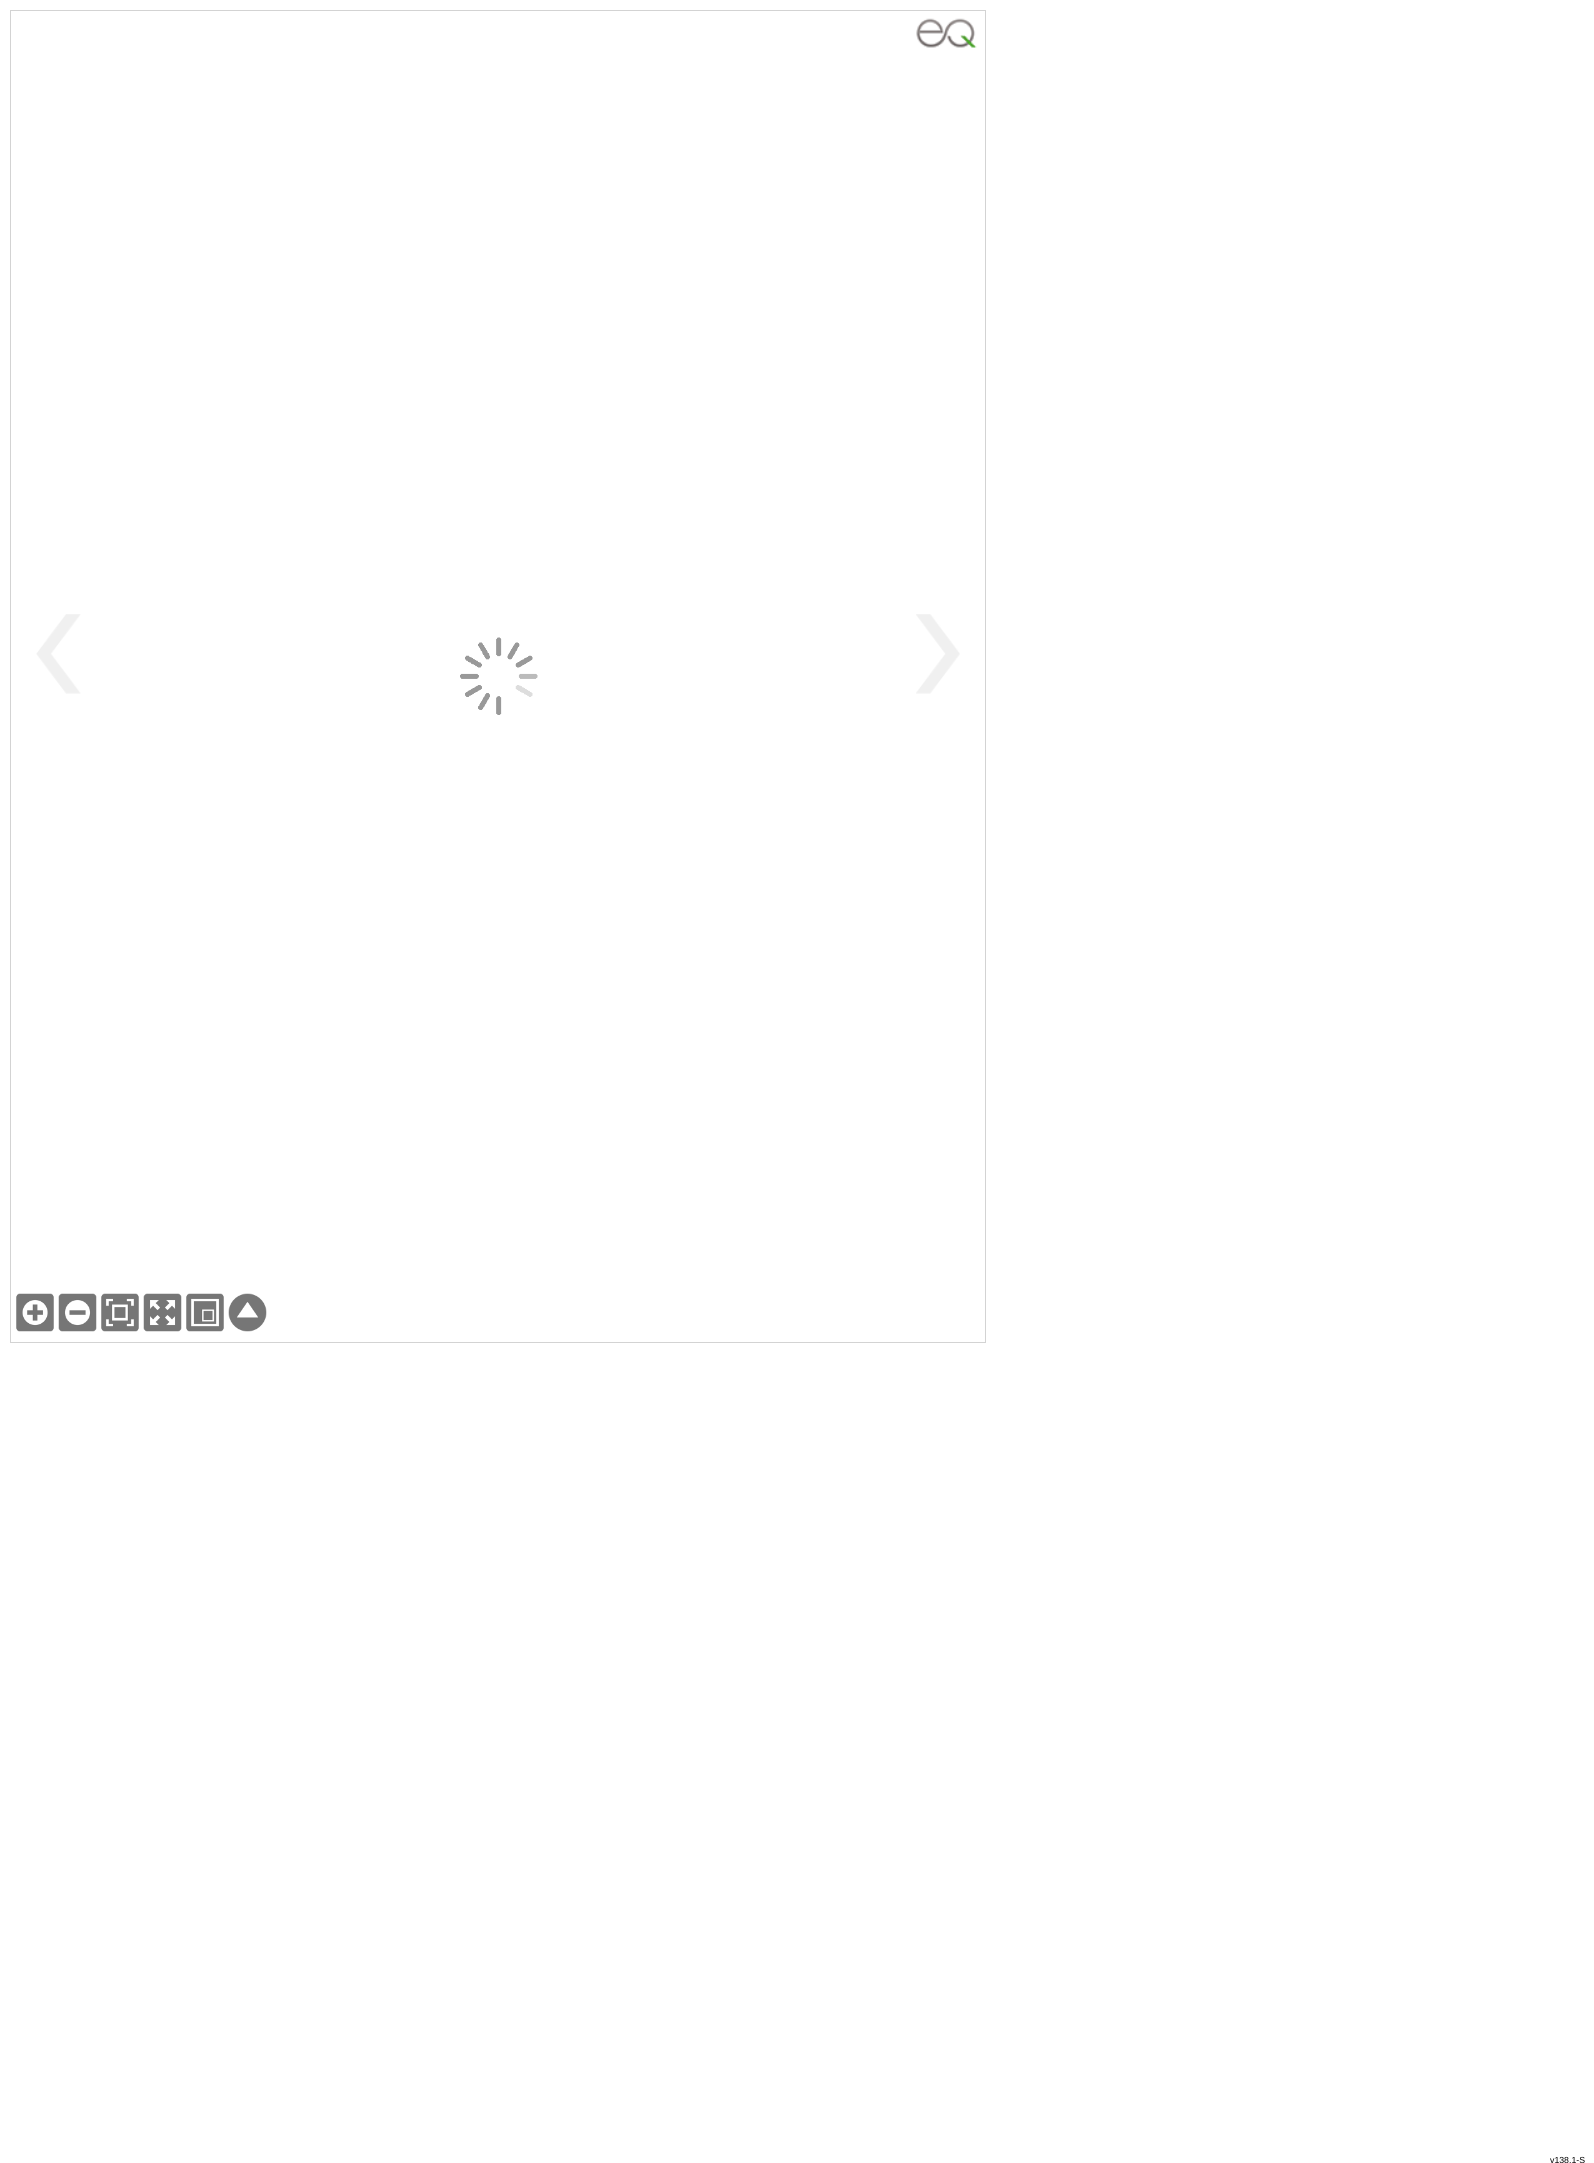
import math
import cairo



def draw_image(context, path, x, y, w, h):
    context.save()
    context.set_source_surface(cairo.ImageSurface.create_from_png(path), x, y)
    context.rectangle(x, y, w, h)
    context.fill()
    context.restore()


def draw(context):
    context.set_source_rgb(1, 1, 1)
    context.paint()
    context.rectangle(10.5, 10.5, 975, 1332)
    context.set_source_rgb(211 / 255, 211 / 255, 211 / 255)
    context.set_line_width(1)
    context.stroke()
    draw_image(context, "images/1.png", 916, 18, 61, 30)
    draw_image(context, "images/2.png", 36, 614, 45, 80)
    draw_image(context, "images/3.png", 460, 637, 78, 78)
    draw_image(context, "images/4.png", 916, 614, 44, 80)
    draw_image(context, "images/5.png", 16, 1293, 38, 39)
    draw_image(context, "images/6.png", 58, 1293, 39, 39)
    draw_image(context, "images/7.png", 101, 1293, 38, 39)
    draw_image(context, "images/8.png", 143, 1293, 39, 39)
    draw_image(context, "images/9.png", 186, 1293, 38, 39)
    draw_image(context, "images/10.png", 228, 1293, 39, 39)
    context.select_font_face("Liberation Sans")
    context.set_font_size(8.75)
    context.set_source_rgb(0, 0, 0)
    context.move_to(1550, 2163)
    context.show_text("v138.1-S")


surface = cairo.ImageSurface(cairo.Format.RGB24, 1594, 2163)
context = cairo.Context(surface)
options = cairo.FontOptions()
options.set_hint_metrics(cairo.HintMetrics.OFF)
options.set_hint_style(cairo.HintStyle.NONE)
context.set_font_options(options)
context.set_miter_limit(4)
draw(context)
surface.write_to_png("out.png")
